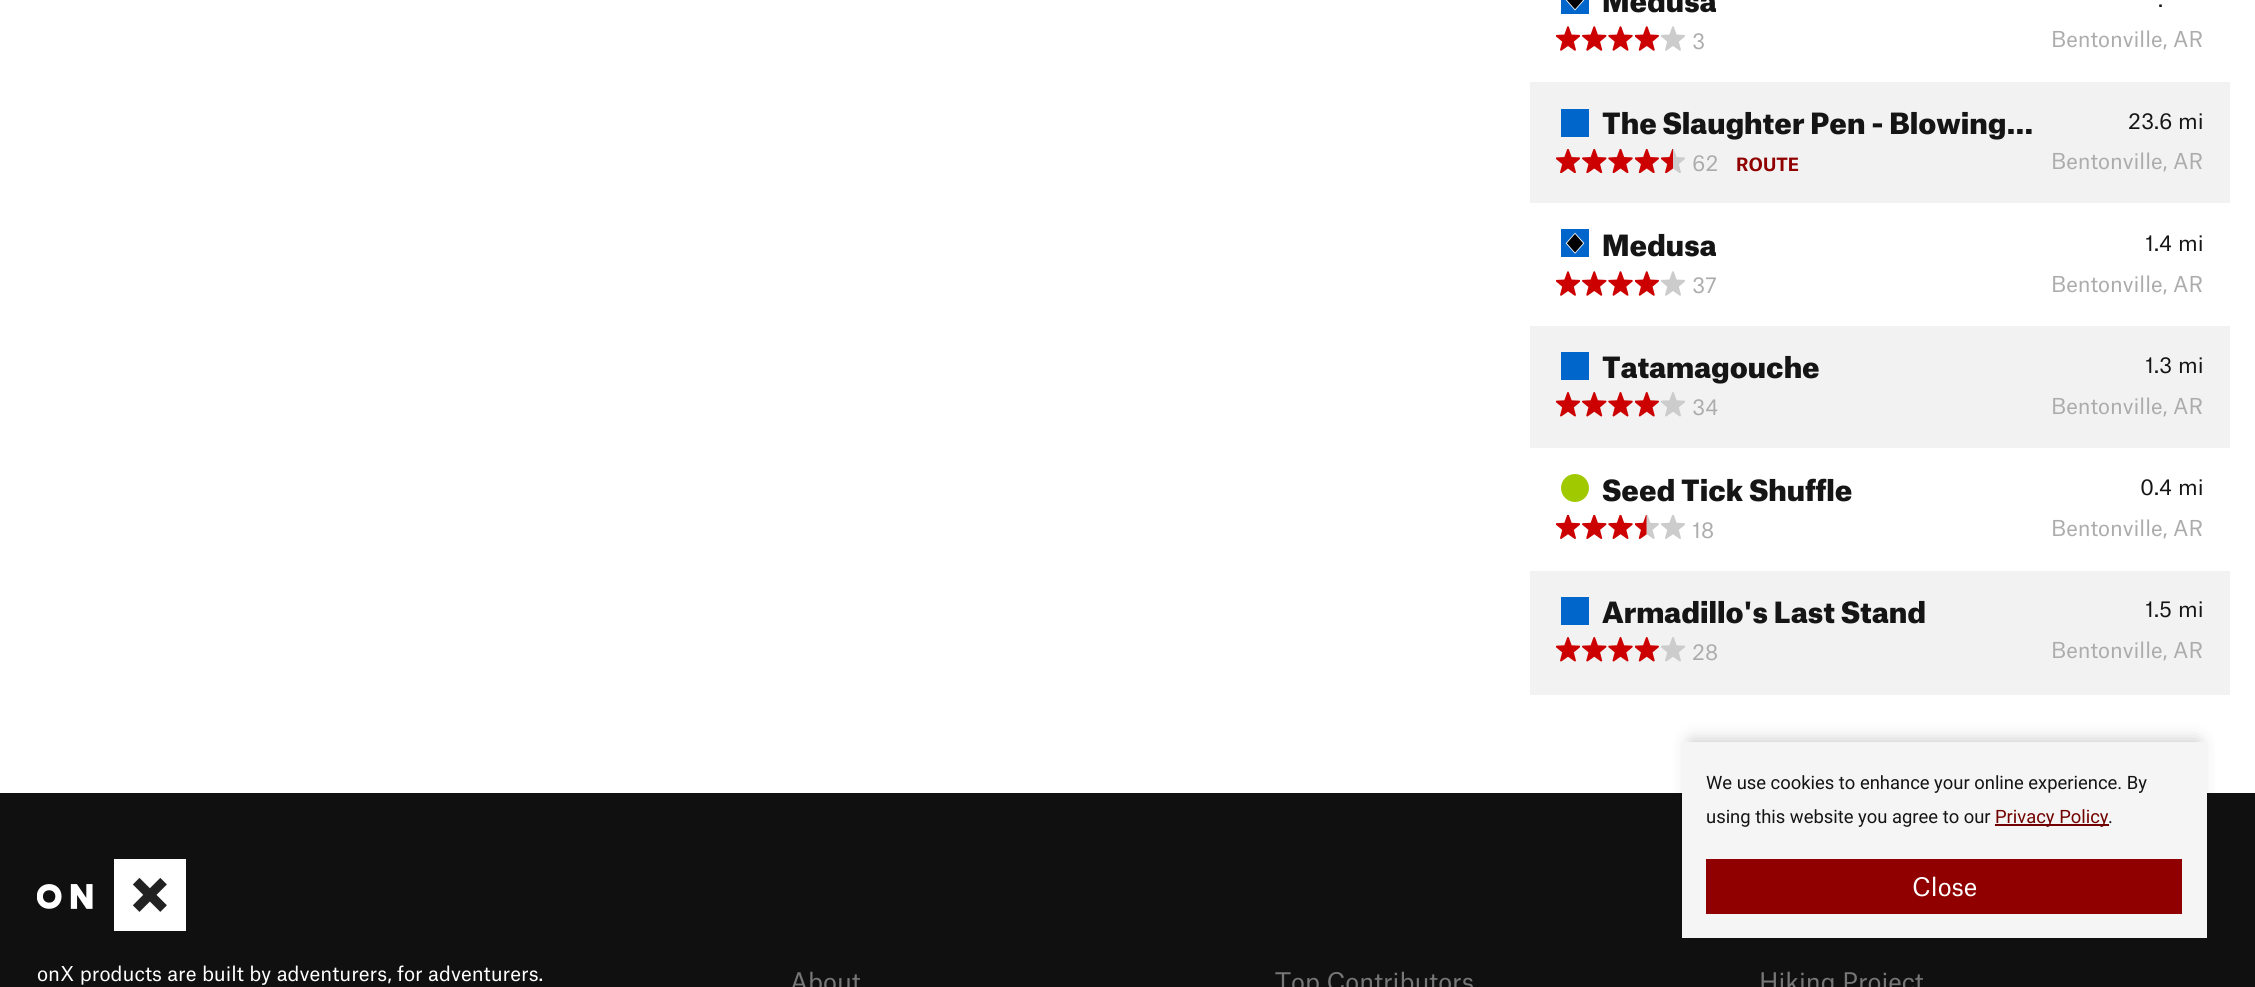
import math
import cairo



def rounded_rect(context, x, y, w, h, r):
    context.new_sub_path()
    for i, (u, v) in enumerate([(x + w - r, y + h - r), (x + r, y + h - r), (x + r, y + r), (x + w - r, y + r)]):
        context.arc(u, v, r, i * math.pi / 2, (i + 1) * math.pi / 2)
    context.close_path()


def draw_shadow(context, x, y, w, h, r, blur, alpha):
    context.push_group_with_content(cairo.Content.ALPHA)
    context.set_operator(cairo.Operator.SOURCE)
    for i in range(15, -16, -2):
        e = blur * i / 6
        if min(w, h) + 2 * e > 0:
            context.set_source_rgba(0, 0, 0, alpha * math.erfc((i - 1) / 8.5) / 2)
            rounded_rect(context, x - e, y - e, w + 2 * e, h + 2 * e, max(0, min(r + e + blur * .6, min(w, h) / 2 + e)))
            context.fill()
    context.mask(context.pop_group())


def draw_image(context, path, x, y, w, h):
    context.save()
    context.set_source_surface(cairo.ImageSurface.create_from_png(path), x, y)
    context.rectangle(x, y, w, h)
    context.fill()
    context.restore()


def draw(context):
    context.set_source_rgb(1, 1, 1)
    context.paint()
    draw_image(context, "images/1.png", 1561, 0, 28, 14)
    draw_image(context, "images/2.png", 1556, 26, 24, 25)
    draw_image(context, "images/3.png", 1582, 26, 25, 25)
    draw_image(context, "images/4.png", 1608, 26, 25, 25)
    draw_image(context, "images/5.png", 1635, 26, 24, 25)
    draw_image(context, "images/6.png", 1661, 26, 24, 25)
    context.set_source_rgb(242 / 255, 242 / 255, 242 / 255)
    context.rectangle(1530, 82, 700, 121)
    context.fill()
    context.set_source_rgb(0, 102 / 255, 204 / 255)
    context.rectangle(1561, 109, 28, 28)
    context.fill()
    draw_image(context, "images/7.png", 1556, 149, 24, 24)
    draw_image(context, "images/8.png", 1582, 149, 25, 24)
    draw_image(context, "images/9.png", 1608, 149, 25, 24)
    draw_image(context, "images/10.png", 1635, 149, 24, 24)
    draw_image(context, "images/11.png", 1661, 149, 24, 24)
    draw_image(context, "images/12.png", 1561, 229, 28, 28)
    draw_image(context, "images/2.png", 1556, 271, 24, 25)
    draw_image(context, "images/3.png", 1582, 271, 25, 25)
    draw_image(context, "images/4.png", 1608, 271, 25, 25)
    draw_image(context, "images/5.png", 1635, 271, 24, 25)
    draw_image(context, "images/6.png", 1661, 271, 24, 25)
    context.set_source_rgb(242 / 255, 242 / 255, 242 / 255)
    context.rectangle(1530, 326, 700, 122)
    context.fill()
    context.set_source_rgb(0, 102 / 255, 204 / 255)
    context.rectangle(1561, 352, 28, 28)
    context.fill()
    draw_image(context, "images/13.png", 1556, 392, 24, 25)
    draw_image(context, "images/14.png", 1582, 392, 25, 25)
    draw_image(context, "images/15.png", 1608, 392, 25, 25)
    draw_image(context, "images/16.png", 1635, 392, 24, 25)
    draw_image(context, "images/17.png", 1661, 392, 24, 25)
    context.set_source_rgb(161 / 255, 201 / 255, 0)
    context.arc(1575, 488, 14, 0, 2 * math.pi)
    context.fill()
    draw_image(context, "images/18.png", 1556, 515, 24, 24)
    draw_image(context, "images/19.png", 1582, 515, 25, 24)
    draw_image(context, "images/20.png", 1608, 515, 25, 24)
    draw_image(context, "images/21.png", 1635, 515, 24, 24)
    draw_image(context, "images/22.png", 1661, 515, 24, 24)
    context.set_source_rgb(242 / 255, 242 / 255, 242 / 255)
    context.rectangle(1530, 571, 700, 124)
    context.fill()
    context.set_source_rgb(0, 102 / 255, 204 / 255)
    context.rectangle(1561, 597, 28, 28)
    context.fill()
    draw_image(context, "images/13.png", 1556, 637, 24, 25)
    draw_image(context, "images/14.png", 1582, 637, 25, 25)
    draw_image(context, "images/15.png", 1608, 637, 25, 25)
    draw_image(context, "images/16.png", 1635, 637, 24, 25)
    draw_image(context, "images/17.png", 1661, 637, 24, 25)
    context.set_source_rgb(16 / 255, 16 / 255, 16 / 255)
    context.rectangle(0, 793, 2255, 194)
    context.fill()
    context.set_source_rgb(0, 0, 0)
    draw_shadow(context, 1691, 742, 507, 179, 0, 9, 0.25)
    context.set_source_rgb(245 / 255, 245 / 255, 245 / 255)
    context.rectangle(1682, 742, 525, 196)
    context.fill()
    context.set_source_rgb(113 / 255, 1 / 255, 0)
    context.rectangle(1995, 824, 114, 2)
    context.fill()
    context.set_source_rgb(144 / 255, 0, 0)
    context.rectangle(1706, 859, 476, 55)
    context.fill()
    draw_image(context, "images/23.png", 37, 859, 149, 72)
    context.select_font_face("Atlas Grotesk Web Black")
    context.set_font_size(28)
    context.set_source_rgb(21 / 255, 21 / 255, 21 / 255)
    context.move_to(1602, 12)
    context.show_text("Medusa")
    context.select_font_face("Atlas Grotesk Web")
    context.set_font_size(21)
    context.move_to(2158, 7)
    context.show_text(".")
    context.set_source_rgb(172 / 255, 172 / 255, 172 / 255)
    context.move_to(1692, 49)
    context.show_text("3")
    context.move_to(2051, 47)
    context.show_text("Bentonville, AR")
    context.select_font_face("Atlas Grotesk Web Black")
    context.set_font_size(28)
    context.set_source_rgb(21 / 255, 21 / 255, 21 / 255)
    context.move_to(1602, 134)
    context.show_text("The Slaughter Pen - Blowing…")
    context.select_font_face("Atlas Grotesk Web")
    context.set_font_size(21)
    context.move_to(2128, 129)
    context.show_text("23.6")
    context.move_to(2178, 129)
    context.show_text("mi")
    context.set_source_rgb(172 / 255, 172 / 255, 172 / 255)
    context.move_to(1692, 171)
    context.show_text("62")
    context.select_font_face("Atlas Grotesk Web", cairo.FontSlant.NORMAL, cairo.FontWeight.BOLD)
    context.set_font_size(17.5)
    context.set_source_rgb(144 / 255, 0, 0)
    context.move_to(1736, 171)
    context.show_text("ROUTE")
    context.select_font_face("Atlas Grotesk Web")
    context.set_font_size(21)
    context.set_source_rgb(172 / 255, 172 / 255, 172 / 255)
    context.move_to(2051, 169)
    context.show_text("Bentonville, AR")
    context.select_font_face("Atlas Grotesk Web Black")
    context.set_font_size(28)
    context.set_source_rgb(21 / 255, 21 / 255, 21 / 255)
    context.move_to(1602, 256)
    context.show_text("Medusa")
    context.select_font_face("Atlas Grotesk Web")
    context.set_font_size(21)
    context.move_to(2145, 251)
    context.show_text("1.4")
    context.move_to(2178, 251)
    context.show_text("mi")
    context.set_source_rgb(172 / 255, 172 / 255, 172 / 255)
    context.move_to(1692, 293)
    context.show_text("37")
    context.move_to(2051, 292)
    context.show_text("Bentonville, AR")
    context.select_font_face("Atlas Grotesk Web Black")
    context.set_font_size(28)
    context.set_source_rgb(21 / 255, 21 / 255, 21 / 255)
    context.move_to(1602, 378)
    context.show_text("Tatamagouche")
    context.select_font_face("Atlas Grotesk Web")
    context.set_font_size(21)
    context.move_to(2145, 373)
    context.show_text("1.3")
    context.move_to(2178, 373)
    context.show_text("mi")
    context.set_source_rgb(172 / 255, 172 / 255, 172 / 255)
    context.move_to(1692, 415)
    context.show_text("34")
    context.move_to(2051, 414)
    context.show_text("Bentonville, AR")
    context.select_font_face("Atlas Grotesk Web Black")
    context.set_font_size(28)
    context.set_source_rgb(21 / 255, 21 / 255, 21 / 255)
    context.move_to(1602, 501)
    context.show_text("Seed Tick Shuffle")
    context.select_font_face("Atlas Grotesk Web")
    context.set_font_size(21)
    context.move_to(2140, 495)
    context.show_text("0.4")
    context.move_to(2178, 495)
    context.show_text("mi")
    context.set_source_rgb(172 / 255, 172 / 255, 172 / 255)
    context.move_to(1692, 538)
    context.show_text("18")
    context.move_to(2051, 536)
    context.show_text("Bentonville, AR")
    context.select_font_face("Atlas Grotesk Web Black")
    context.set_font_size(28)
    context.set_source_rgb(21 / 255, 21 / 255, 21 / 255)
    context.move_to(1602, 623)
    context.show_text("Armadillo's Last Stand")
    context.select_font_face("Atlas Grotesk Web")
    context.set_font_size(21)
    context.move_to(2145, 617)
    context.show_text("1.5")
    context.move_to(2178, 617)
    context.show_text("mi")
    context.set_source_rgb(172 / 255, 172 / 255, 172 / 255)
    context.move_to(1692, 660)
    context.show_text("28")
    context.move_to(2051, 658)
    context.show_text("Bentonville, AR")
    context.select_font_face("Roboto")
    context.set_font_size(18.4)
    context.set_source_rgb(21 / 255, 21 / 255, 21 / 255)
    context.move_to(1706, 789)
    context.show_text("We use cookies to enhance your online experience. By")
    context.move_to(1706, 823)
    context.show_text("using this website you agree to our")
    context.set_source_rgb(113 / 255, 1 / 255, 0)
    context.move_to(1995, 823)
    context.show_text("Privacy Policy")
    context.set_source_rgb(21 / 255, 21 / 255, 21 / 255)
    context.move_to(2108, 823)
    context.show_text(".")
    context.select_font_face("Atlas Grotesk Web")
    context.set_font_size(24.5)
    context.set_source_rgb(1, 1, 1)
    context.move_to(1912, 896)
    context.show_text("Close")
    context.set_font_size(19.6)
    context.move_to(37, 981)
    context.show_text("onX products are built by adventurers, for adventurers.")
    context.set_font_size(24.5)
    context.set_source_rgb(119 / 255, 119 / 255, 119 / 255)
    context.move_to(790, 991)
    context.show_text("About")
    context.move_to(1275, 991)
    context.show_text("Top Contributors")
    context.move_to(1759, 991)
    context.show_text("Hiking Project")


surface = cairo.ImageSurface(cairo.Format.RGB24, 2255, 987)
context = cairo.Context(surface)
options = cairo.FontOptions()
options.set_hint_metrics(cairo.HintMetrics.OFF)
options.set_hint_style(cairo.HintStyle.NONE)
context.set_font_options(options)
context.set_miter_limit(4)
draw(context)
surface.write_to_png("out.png")
